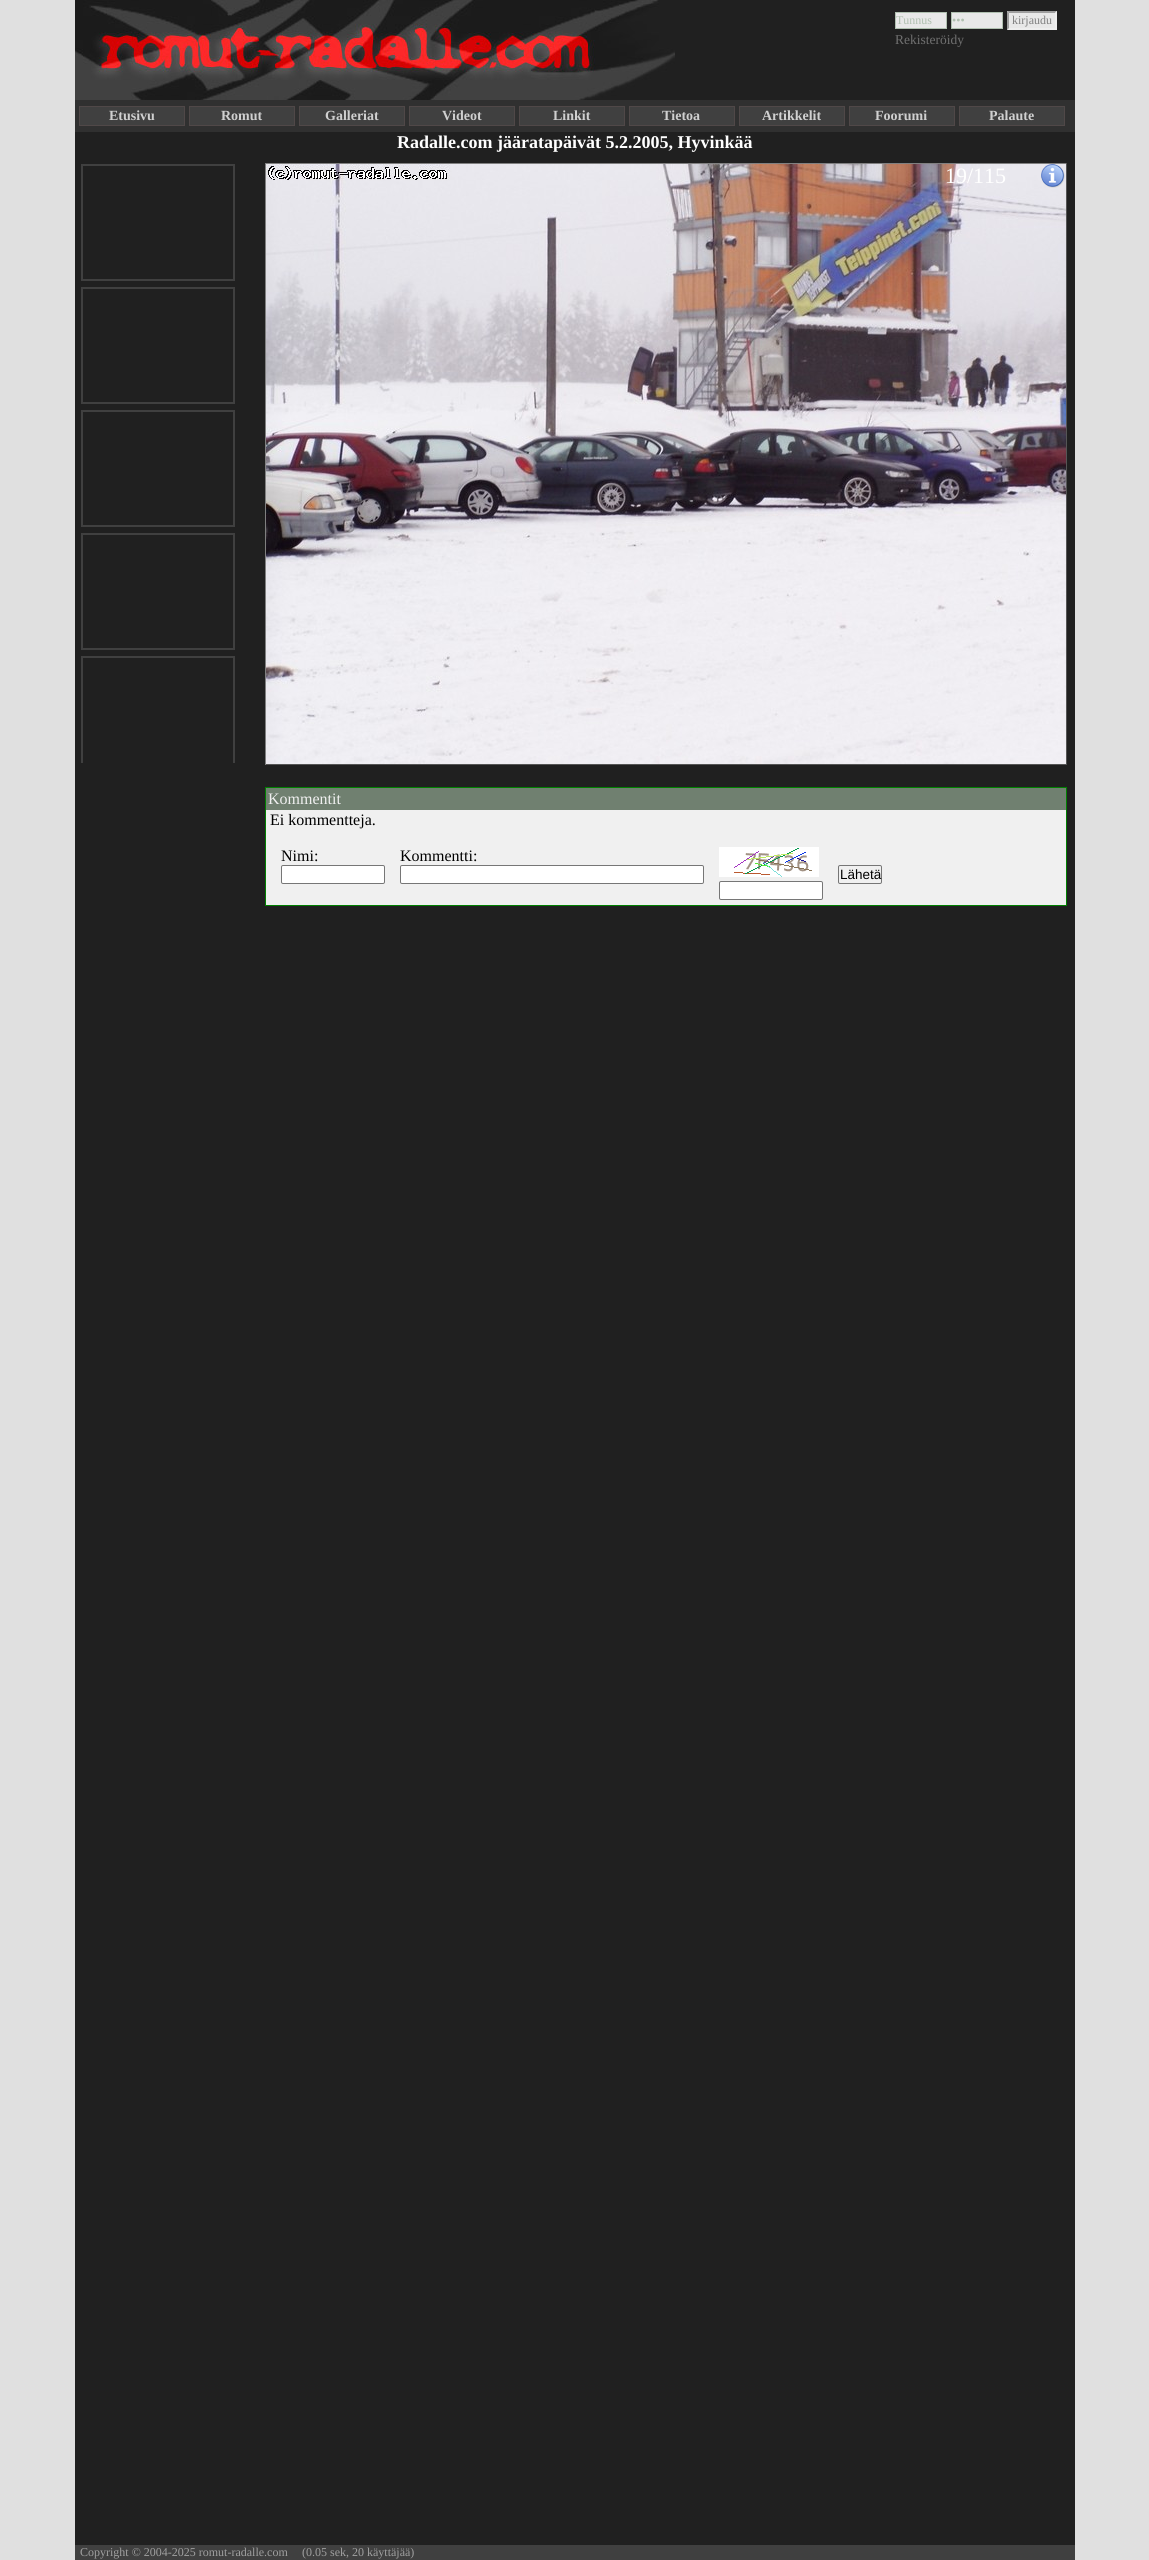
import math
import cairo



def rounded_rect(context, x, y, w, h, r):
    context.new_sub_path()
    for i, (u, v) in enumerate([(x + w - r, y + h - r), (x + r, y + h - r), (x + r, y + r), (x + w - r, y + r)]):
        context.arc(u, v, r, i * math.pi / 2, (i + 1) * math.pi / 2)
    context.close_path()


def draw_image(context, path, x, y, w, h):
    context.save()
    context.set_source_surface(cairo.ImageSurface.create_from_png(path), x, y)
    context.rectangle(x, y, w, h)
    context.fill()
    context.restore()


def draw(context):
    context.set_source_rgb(224 / 255, 224 / 255, 224 / 255)
    context.paint()
    context.set_source_rgb(32 / 255, 32 / 255, 32 / 255)
    context.rectangle(75, 0, 1000, 2545)
    context.fill()
    draw_image(context, "images/1.png", 75, 0, 600, 100)
    context.set_source_rgb(232 / 255, 232 / 255, 232 / 255)
    context.rectangle(895.5, 12.5, 51, 16)
    context.fill_preserve()
    context.set_source_rgb(176 / 255, 192 / 255, 176 / 255)
    context.set_line_width(1)
    context.stroke()
    context.set_source_rgb(232 / 255, 232 / 255, 232 / 255)
    context.rectangle(951.5, 12.5, 51, 16)
    context.fill_preserve()
    context.set_source_rgb(176 / 255, 192 / 255, 176 / 255)
    context.stroke()
    context.set_source_rgb(232 / 255, 232 / 255, 232 / 255)
    context.rectangle(1007, 11, 50, 19)
    context.fill()
    context.set_source_rgb(159 / 255, 159 / 255, 159 / 255)
    context.new_path()
    context.move_to(1007, 11)
    context.line_to(1057, 11)
    context.line_to(1055, 13)
    context.line_to(1009, 13)
    context.close_path()
    context.fill()
    context.set_source_rgb(238 / 255, 238 / 255, 238 / 255)
    context.new_path()
    context.move_to(1057, 11)
    context.line_to(1057, 30)
    context.line_to(1055, 28)
    context.line_to(1055, 13)
    context.close_path()
    context.fill()
    context.new_path()
    context.move_to(1057, 30)
    context.line_to(1007, 30)
    context.line_to(1009, 28)
    context.line_to(1055, 28)
    context.close_path()
    context.fill()
    context.set_source_rgb(159 / 255, 159 / 255, 159 / 255)
    context.new_path()
    context.move_to(1007, 30)
    context.line_to(1007, 11)
    context.line_to(1009, 13)
    context.line_to(1009, 28)
    context.close_path()
    context.fill()
    context.set_source_rgb(48 / 255, 48 / 255, 48 / 255)
    context.rectangle(75, 100, 1000, 32)
    context.fill()
    context.set_source_rgb(64 / 255, 64 / 255, 64 / 255)
    context.rectangle(79.5, 106.5, 105, 19)
    context.fill_preserve()
    context.set_source_rgb(80 / 255, 72 / 255, 72 / 255)
    context.stroke()
    context.set_source_rgb(64 / 255, 64 / 255, 64 / 255)
    context.rectangle(189.5, 106.5, 105, 19)
    context.fill_preserve()
    context.set_source_rgb(80 / 255, 72 / 255, 72 / 255)
    context.stroke()
    context.set_source_rgb(64 / 255, 64 / 255, 64 / 255)
    context.rectangle(299.5, 106.5, 105, 19)
    context.fill_preserve()
    context.set_source_rgb(80 / 255, 72 / 255, 72 / 255)
    context.stroke()
    context.set_source_rgb(64 / 255, 64 / 255, 64 / 255)
    context.rectangle(409.5, 106.5, 105, 19)
    context.fill_preserve()
    context.set_source_rgb(80 / 255, 72 / 255, 72 / 255)
    context.stroke()
    context.set_source_rgb(64 / 255, 64 / 255, 64 / 255)
    context.rectangle(519.5, 106.5, 105, 19)
    context.fill_preserve()
    context.set_source_rgb(80 / 255, 72 / 255, 72 / 255)
    context.stroke()
    context.set_source_rgb(64 / 255, 64 / 255, 64 / 255)
    context.rectangle(629.5, 106.5, 105, 19)
    context.fill_preserve()
    context.set_source_rgb(80 / 255, 72 / 255, 72 / 255)
    context.stroke()
    context.set_source_rgb(64 / 255, 64 / 255, 64 / 255)
    context.rectangle(739.5, 106.5, 105, 19)
    context.fill_preserve()
    context.set_source_rgb(80 / 255, 72 / 255, 72 / 255)
    context.stroke()
    context.set_source_rgb(64 / 255, 64 / 255, 64 / 255)
    context.rectangle(849.5, 106.5, 105, 19)
    context.fill_preserve()
    context.set_source_rgb(80 / 255, 72 / 255, 72 / 255)
    context.stroke()
    context.set_source_rgb(64 / 255, 64 / 255, 64 / 255)
    context.rectangle(959.5, 106.5, 105, 19)
    context.fill_preserve()
    context.set_source_rgb(80 / 255, 72 / 255, 72 / 255)
    context.stroke()
    context.rectangle(82, 165, 152, 115)
    context.set_source_rgb(64 / 255, 64 / 255, 64 / 255)
    context.set_line_width(2)
    context.stroke()
    context.rectangle(82, 288, 152, 115)
    context.stroke()
    context.rectangle(82, 411, 152, 115)
    context.stroke()
    context.rectangle(82, 534, 152, 115)
    context.stroke()
    context.save()
    context.rectangle(80, 163, 176, 600)
    context.clip()
    context.rectangle(82, 657, 152, 115)
    context.stroke()
    context.restore()
    draw_image(context, "images/3.png", 266, 164, 800, 600)
    draw_image(context, "images/2.png", 1041, 164, 24, 24)
    context.set_source_rgb(128 / 255, 128 / 255, 128 / 255)
    context.rectangle(265, 163, 802, 1)
    context.fill()
    context.set_source_rgb(85 / 255, 85 / 255, 85 / 255)
    context.rectangle(1066, 163, 1, 602)
    context.fill()
    context.rectangle(265, 764, 802, 1)
    context.fill()
    context.set_source_rgb(128 / 255, 128 / 255, 128 / 255)
    context.rectangle(265, 163, 1, 602)
    context.fill()
    context.set_source_rgb(240 / 255, 240 / 255, 240 / 255)
    context.rectangle(266, 811, 800, 94)
    context.fill()
    context.rectangle(265.5, 787.5, 801, 118)
    context.set_source_rgb(0, 128 / 255, 0)
    context.set_line_width(1)
    context.stroke()
    context.set_source_rgb(112 / 255, 128 / 255, 112 / 255)
    context.rectangle(266, 788, 800, 22)
    context.fill()
    context.set_source_rgb(240 / 255, 240 / 255, 240 / 255)
    context.rectangle(266, 810, 800, 1)
    context.fill()
    context.set_source_rgb(1, 1, 1)
    rounded_rect(context, 281.5, 865.5, 103, 18, 1.5)
    context.fill_preserve()
    context.set_source_rgb(118 / 255, 118 / 255, 118 / 255)
    context.stroke()
    context.set_source_rgb(1, 1, 1)
    rounded_rect(context, 400.5, 865.5, 303, 18, 1.5)
    context.fill_preserve()
    context.set_source_rgb(118 / 255, 118 / 255, 118 / 255)
    context.stroke()
    draw_image(context, "images/4.png", 719, 847, 100, 30)
    context.set_source_rgb(1, 1, 1)
    rounded_rect(context, 719.5, 881.5, 103, 18, 1.5)
    context.fill_preserve()
    context.set_source_rgb(118 / 255, 118 / 255, 118 / 255)
    context.stroke()
    rounded_rect(context, 838.5, 865.5, 43, 18, 1.5)
    context.stroke()
    context.set_source_rgb(64 / 255, 64 / 255, 64 / 255)
    context.rectangle(75, 2545, 1000, 15)
    context.fill()
    context.select_font_face("Liberation Serif")
    context.set_font_size(12)
    context.set_source_rgb(176 / 255, 192 / 255, 176 / 255)
    context.move_to(896, 24)
    context.show_text("Tunnus")
    context.move_to(952, 24)
    context.show_text("•••")
    context.set_source_rgb(128 / 255, 128 / 255, 128 / 255)
    context.move_to(1012, 24)
    context.show_text("kirjaudu")
    context.set_font_size(13.5)
    context.set_source_rgb(112 / 255, 112 / 255, 112 / 255)
    context.move_to(895, 44)
    context.show_text("Rekisteröidy")
    context.select_font_face("Liberation Serif", cairo.FontSlant.NORMAL, cairo.FontWeight.BOLD)
    context.set_font_size(14)
    context.set_source_rgb(208 / 255, 208 / 255, 208 / 255)
    context.move_to(109, 120)
    context.show_text("Etusivu")
    context.move_to(221, 120)
    context.show_text("Romut")
    context.move_to(325, 120)
    context.show_text("Galleriat")
    context.move_to(442, 120)
    context.show_text("Videot")
    context.move_to(553, 120)
    context.show_text("Linkit")
    context.move_to(662, 120)
    context.show_text("Tietoa")
    context.move_to(762, 120)
    context.show_text("Artikkelit")
    context.move_to(875, 120)
    context.show_text("Foorumi")
    context.move_to(989, 120)
    context.show_text("Palaute")
    context.set_font_size(18)
    context.set_source_rgb(1, 1, 1)
    context.move_to(397, 148)
    context.show_text("Radalle.com jääratapäivät 5.2.2005, Hyvinkää")
    context.select_font_face("Liberation Serif")
    context.set_font_size(22)
    context.move_to(945, 183)
    context.show_text("19/115")
    context.set_font_size(16)
    context.set_source_rgb(240 / 255, 240 / 255, 240 / 255)
    context.move_to(268, 804)
    context.show_text("Kommentit")
    context.set_source_rgb(0, 0, 0)
    context.move_to(270, 825)
    context.show_text("Ei kommentteja.")
    context.move_to(281, 861)
    context.show_text("Nimi:")
    context.move_to(400, 861)
    context.show_text("Kommentti:")
    context.select_font_face("Liberation Sans")
    context.set_font_size(13.5)
    context.move_to(840, 879)
    context.show_text("Lähetä")
    context.select_font_face("Liberation Serif")
    context.set_font_size(12)
    context.set_source_rgb(160 / 255, 160 / 255, 160 / 255)
    context.move_to(80, 2556)
    context.show_text("Copyright © 2004-2025 romut-radalle.com")
    context.move_to(302, 2556)
    context.show_text("(0.05 sek, 20 käyttäjää)")


surface = cairo.ImageSurface(cairo.Format.RGB24, 1149, 2560)
context = cairo.Context(surface)
options = cairo.FontOptions()
options.set_hint_metrics(cairo.HintMetrics.OFF)
options.set_hint_style(cairo.HintStyle.NONE)
context.set_font_options(options)
context.set_miter_limit(4)
draw(context)
surface.write_to_png("out.png")
